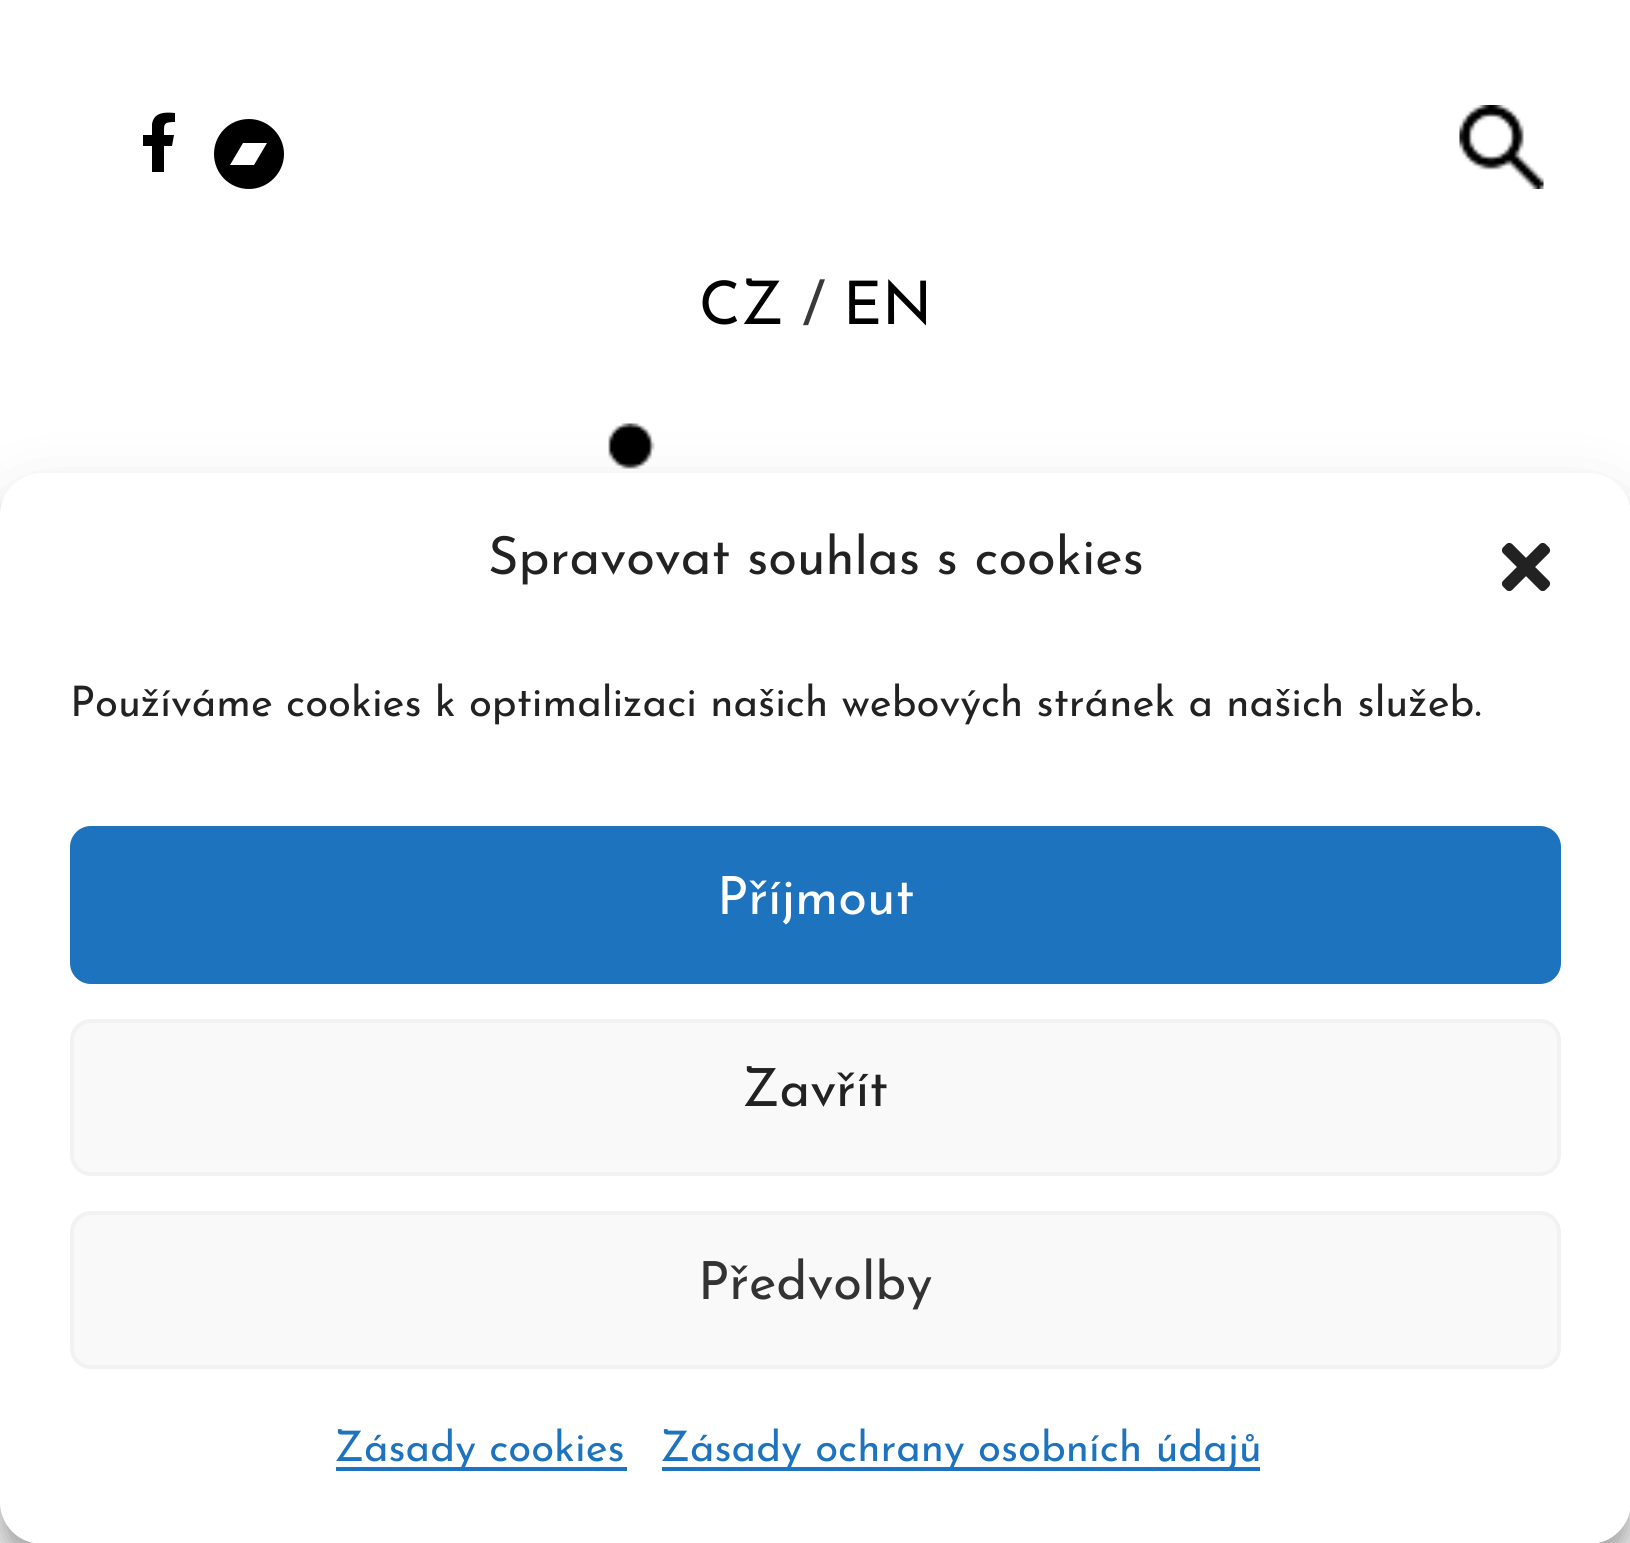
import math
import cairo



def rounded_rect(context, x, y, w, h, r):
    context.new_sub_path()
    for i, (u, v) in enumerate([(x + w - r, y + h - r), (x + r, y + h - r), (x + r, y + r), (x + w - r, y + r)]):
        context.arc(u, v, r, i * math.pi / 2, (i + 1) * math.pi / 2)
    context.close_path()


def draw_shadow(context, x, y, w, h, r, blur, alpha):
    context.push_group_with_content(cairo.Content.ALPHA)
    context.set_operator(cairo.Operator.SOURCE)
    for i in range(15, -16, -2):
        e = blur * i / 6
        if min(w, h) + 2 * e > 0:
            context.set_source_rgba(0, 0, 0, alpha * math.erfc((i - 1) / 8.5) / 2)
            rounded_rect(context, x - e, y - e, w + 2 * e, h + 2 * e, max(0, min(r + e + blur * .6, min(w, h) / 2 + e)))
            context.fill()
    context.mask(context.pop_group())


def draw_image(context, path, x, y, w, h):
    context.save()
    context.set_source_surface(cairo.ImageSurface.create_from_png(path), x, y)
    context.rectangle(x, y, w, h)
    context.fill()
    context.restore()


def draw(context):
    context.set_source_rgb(1, 1, 1)
    context.paint()
    context.set_source_rgb(0, 0, 0)
    context.new_path()
    context.move_to(172, 146)
    context.line_to(164, 146)
    context.line_to(164, 172)
    context.line_to(152, 172)
    context.line_to(152, 146)
    context.line_to(143, 146)
    context.line_to(143, 135)
    context.line_to(152, 135)
    context.line_to(152, 124)
    context.curve_to(154, 112, 165, 112, 175, 113)
    context.line_to(175, 122)
    context.curve_to(163, 122, 164, 124, 164, 135)
    context.line_to(174, 135)
    context.close_path()
    context.fill()
    context.new_path()
    context.move_to(249, 119)
    context.curve_to(229, 119, 214, 135, 214, 154)
    context.curve_to(214, 173, 229, 189, 249, 189)
    context.curve_to(268, 189, 284, 173, 284, 154)
    context.curve_to(284, 135, 268, 119, 249, 119)
    context.close_path()
    context.move_to(254, 165)
    context.line_to(230, 165)
    context.line_to(243, 143)
    context.line_to(267, 143)
    context.close_path()
    context.fill()
    draw_image(context, "images/1.png", 1459, 105, 85, 84)
    draw_image(context, "images/2.png", 608, 423, 47, 46)
    context.set_source_rgb(0, 0, 0)
    draw_shadow(context, 0, 494, 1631, 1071, 42, 10.5, 0.23)
    draw_shadow(context, 0, 508, 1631, 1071, 42, 35, 0.19)
    context.set_source_rgb(1, 1, 1)
    rounded_rect(context, 0, 473, 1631, 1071, 42)
    context.fill()
    draw_image(context, "images/3.png", 1501, 542, 50, 50)
    context.set_source_rgb(30 / 255, 115 / 255, 190 / 255)
    rounded_rect(context, 72, 828, 1487, 154, 19)
    context.fill_preserve()
    context.set_line_width(4)
    context.stroke()
    context.set_source_rgb(249 / 255, 249 / 255, 249 / 255)
    rounded_rect(context, 72, 1021, 1487, 153, 19)
    context.fill_preserve()
    context.set_source_rgb(242 / 255, 242 / 255, 242 / 255)
    context.stroke()
    context.set_source_rgb(249 / 255, 249 / 255, 249 / 255)
    rounded_rect(context, 72, 1213, 1487, 154, 19)
    context.fill_preserve()
    context.set_source_rgb(242 / 255, 242 / 255, 242 / 255)
    context.stroke()
    context.set_source_rgb(30 / 255, 115 / 255, 190 / 255)
    context.rectangle(336, 1467, 291, 4)
    context.fill()
    context.rectangle(662, 1467, 598, 4)
    context.fill()
    context.select_font_face("Josefin Sans")
    context.set_font_size(60)
    context.set_source_rgb(0, 0, 0)
    context.move_to(699, 324)
    context.show_text("CZ")
    context.set_source_rgb(58 / 255, 58 / 255, 58 / 255)
    context.move_to(802, 324)
    context.show_text("/")
    context.set_source_rgb(0, 0, 0)
    context.move_to(843, 324)
    context.show_text("EN")
    context.set_font_size(52.5)
    context.set_source_rgb(34 / 255, 34 / 255, 34 / 255)
    context.move_to(488, 574)
    context.show_text("Spravovat souhlas s cookies")
    context.set_font_size(42)
    context.move_to(70, 716)
    context.show_text("Používáme cookies k optimalizaci našich webových stránek a našich služeb.")
    context.set_font_size(52.5)
    context.set_source_rgb(1, 1, 1)
    context.move_to(717, 914)
    context.show_text("Příjmout")
    context.set_source_rgb(34 / 255, 34 / 255, 34 / 255)
    context.move_to(742, 1106)
    context.show_text("Zavřít")
    context.set_source_rgb(51 / 255, 51 / 255, 51 / 255)
    context.move_to(698, 1299)
    context.show_text("Předvolby")
    context.set_font_size(42)
    context.set_source_rgb(30 / 255, 115 / 255, 190 / 255)
    context.move_to(334, 1461)
    context.show_text("Zásady cookies")
    context.move_to(660, 1461)
    context.show_text("Zásady ochrany osobních údajů")


surface = cairo.ImageSurface(cairo.Format.RGB24, 1630, 1543)
context = cairo.Context(surface)
options = cairo.FontOptions()
options.set_hint_metrics(cairo.HintMetrics.OFF)
options.set_hint_style(cairo.HintStyle.NONE)
context.set_font_options(options)
context.set_miter_limit(4)
draw(context)
surface.write_to_png("out.png")
